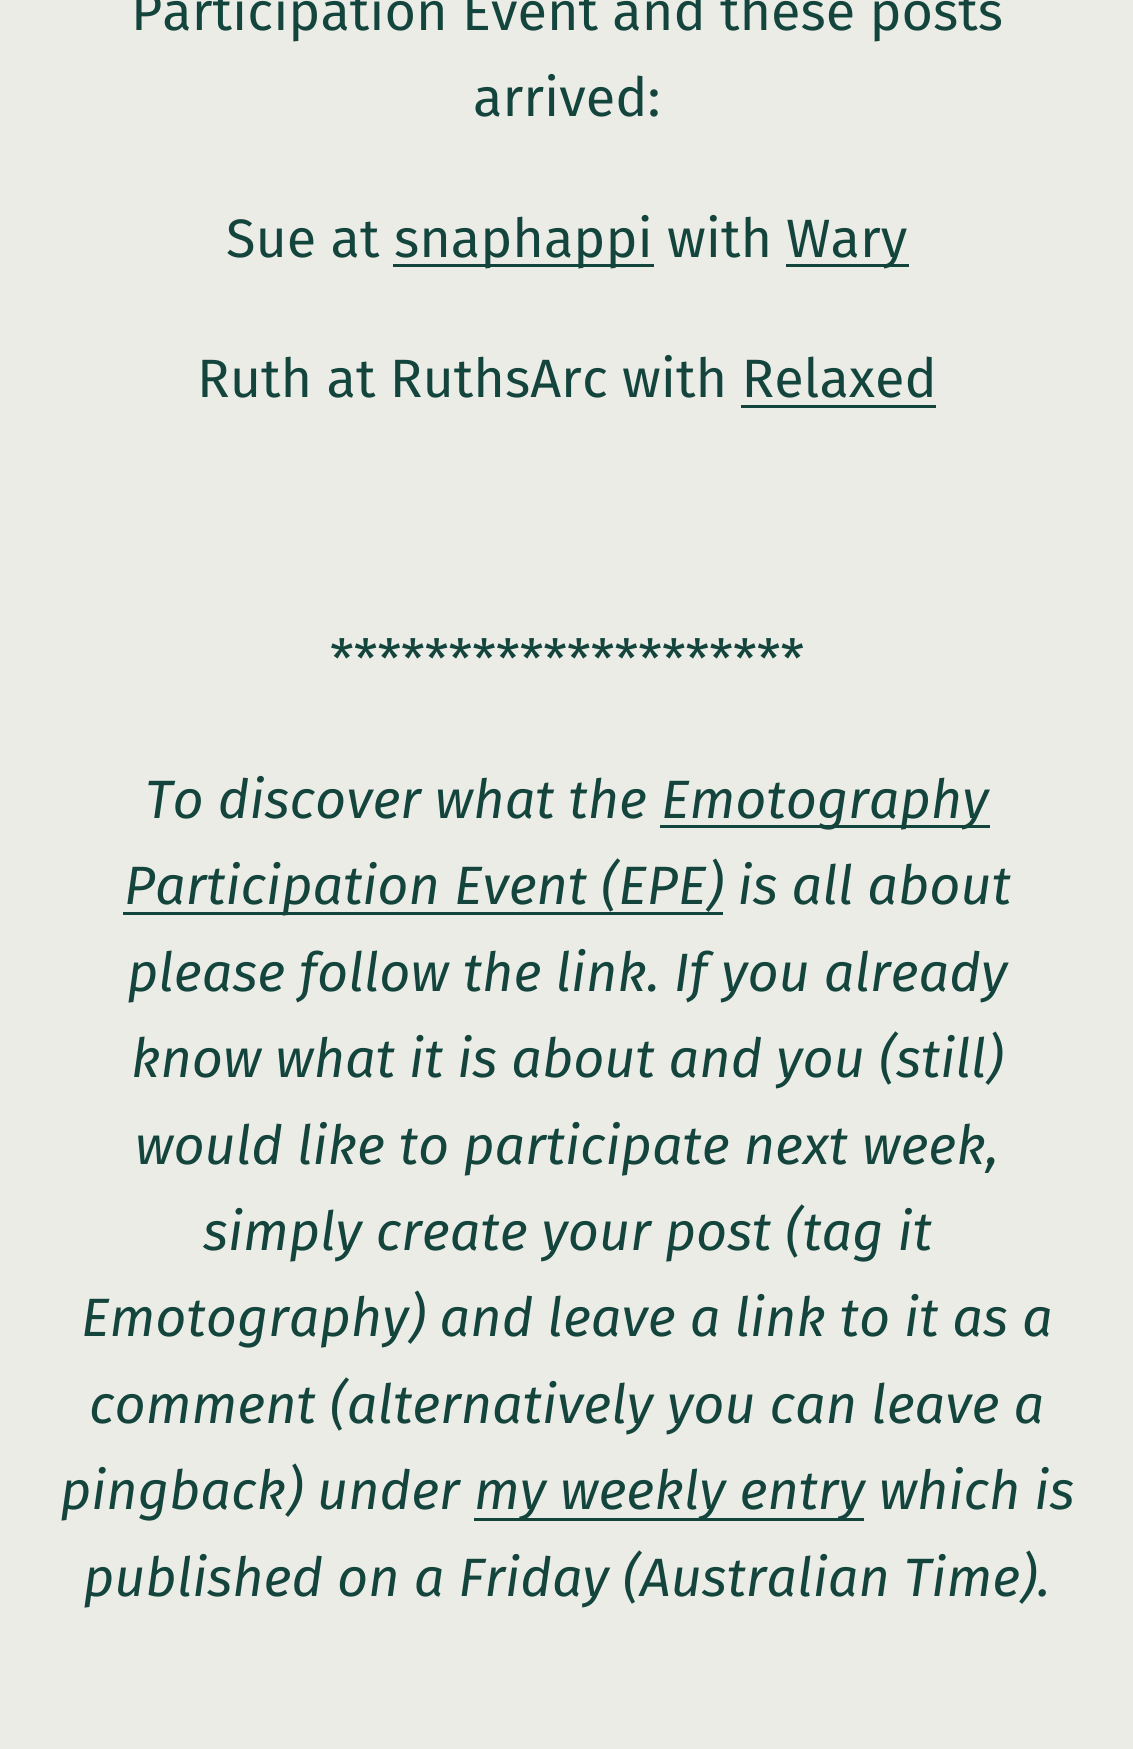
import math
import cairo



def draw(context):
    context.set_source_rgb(236 / 255, 236 / 255, 231 / 255)
    context.paint()
    context.set_source_rgb(20 / 255, 69 / 255, 61 / 255)
    context.rectangle(393, 264, 261, 3)
    context.fill()
    context.rectangle(786, 264, 123, 3)
    context.fill()
    context.rectangle(741, 405, 195, 3)
    context.fill()
    context.rectangle(660, 825, 330, 3)
    context.fill()
    context.rectangle(123, 912, 600, 3)
    context.fill()
    context.rectangle(474, 1518, 390, 3)
    context.fill()
    context.select_font_face("Fira Sans")
    context.set_font_size(54)
    context.move_to(131, 30)
    context.show_text("Participation Event and these posts")
    context.move_to(473, 116)
    context.show_text("arrived:")
    context.move_to(226, 257)
    context.show_text("Sue at")
    context.move_to(394, 257)
    context.show_text("snaphappi with")
    context.move_to(786, 257)
    context.show_text("Wary")
    context.move_to(197, 397)
    context.show_text("Ruth at RuthsArc with Relaxed")
    context.move_to(330, 678)
    context.show_text("********************")
    context.select_font_face("Fira Sans", cairo.FontSlant.ITALIC)
    context.move_to(145, 818)
    context.show_text("To discover what the")
    context.move_to(661, 818)
    context.show_text("Emotography")
    context.move_to(124, 904)
    context.show_text("Participation Event (EPE) is all about")
    context.move_to(127, 991)
    context.show_text("please follow the link. If you already")
    context.move_to(131, 1077)
    context.show_text("know what it is about and you (still)")
    context.move_to(135, 1164)
    context.show_text("would like to participate next week,")
    context.move_to(203, 1250)
    context.show_text("simply create your post (tag it")
    context.move_to(81, 1336)
    context.show_text("Emotography) and leave a link to it as a")
    context.move_to(89, 1423)
    context.show_text("comment (alternatively you can leave a")
    context.move_to(60, 1509)
    context.show_text("pingback) under")
    context.move_to(474, 1509)
    context.show_text("my weekly entry which is")
    context.move_to(83, 1596)
    context.show_text("published on a Friday (Australian Time).")


surface = cairo.ImageSurface(cairo.Format.RGB24, 1133, 1749)
context = cairo.Context(surface)
options = cairo.FontOptions()
options.set_hint_metrics(cairo.HintMetrics.OFF)
options.set_hint_style(cairo.HintStyle.NONE)
context.set_font_options(options)
context.set_miter_limit(4)
draw(context)
surface.write_to_png("out.png")
